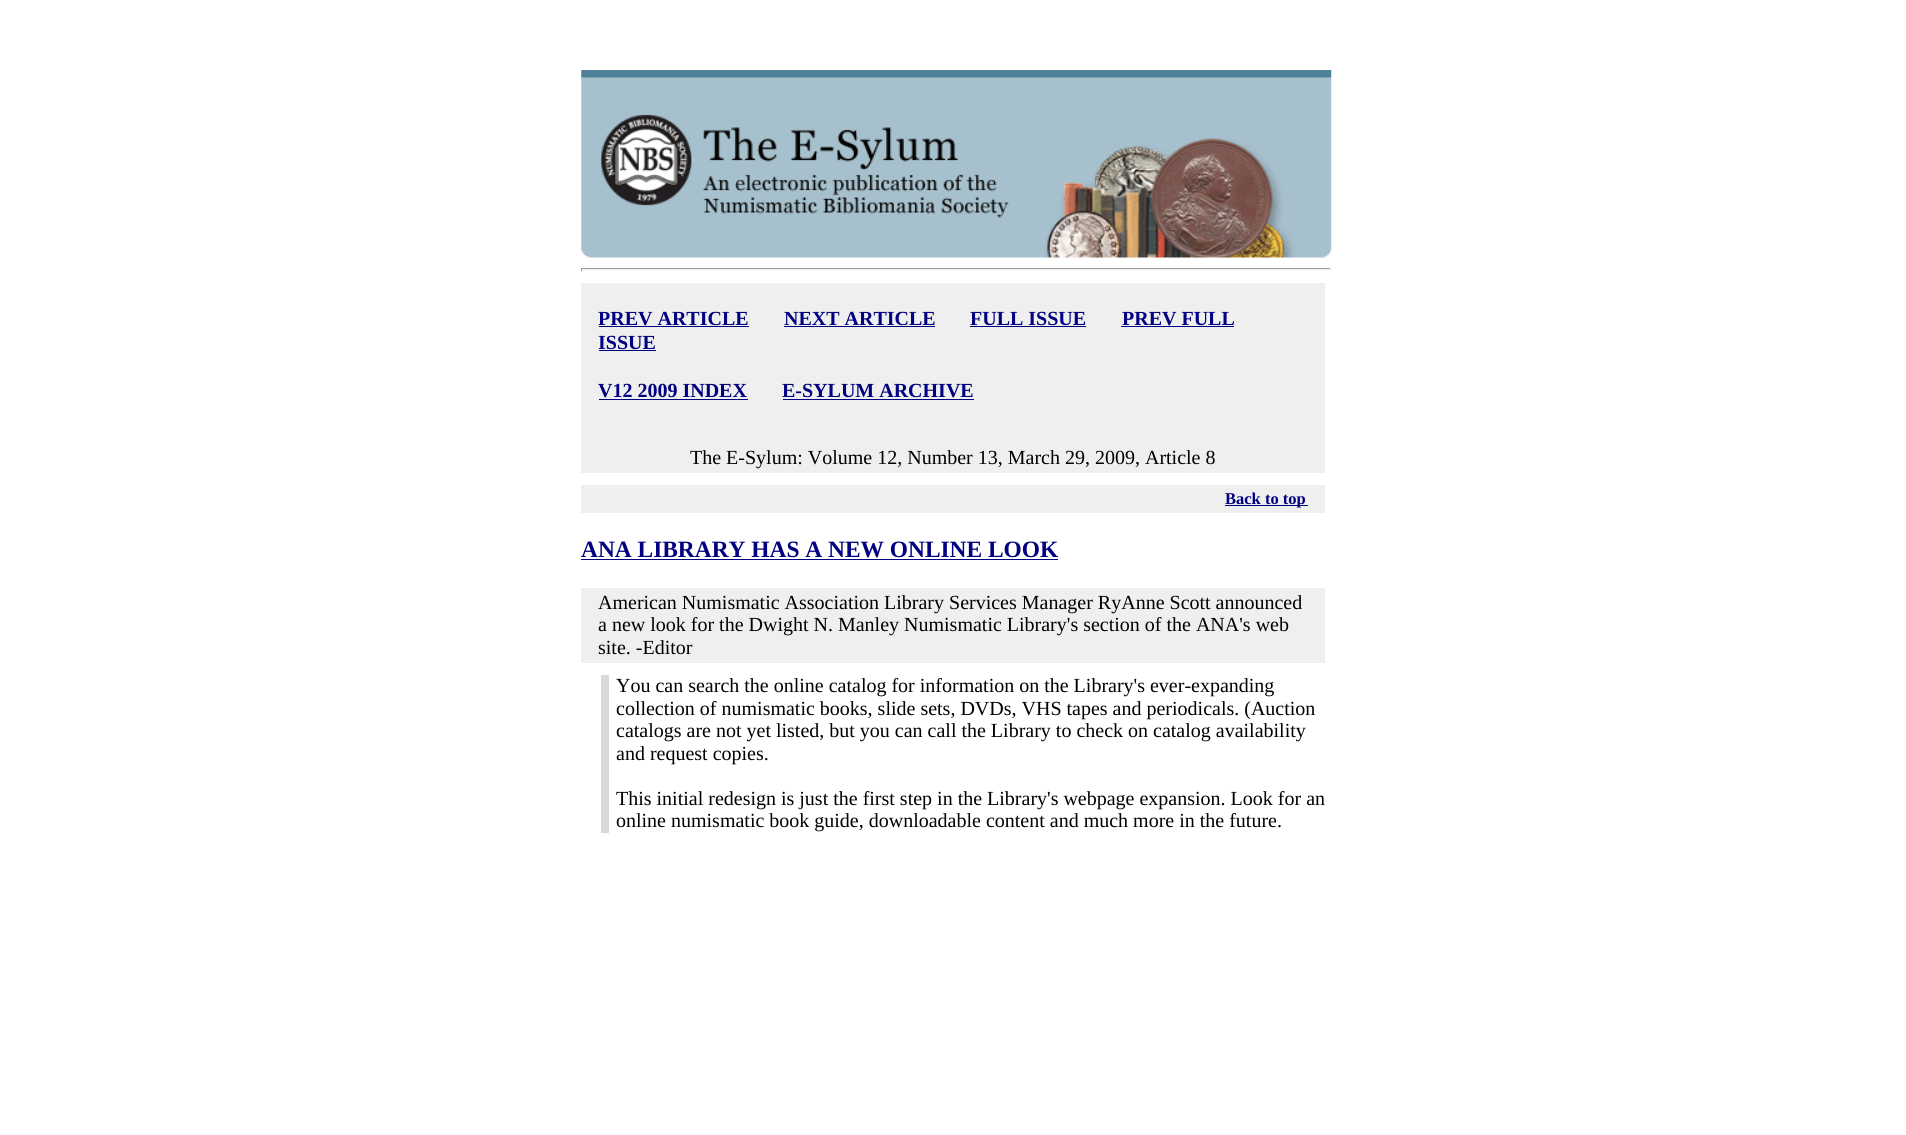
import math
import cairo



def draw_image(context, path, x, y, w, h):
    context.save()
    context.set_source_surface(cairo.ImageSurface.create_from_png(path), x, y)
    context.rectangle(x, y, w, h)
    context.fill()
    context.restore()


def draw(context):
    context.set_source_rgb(1, 1, 1)
    context.paint()
    draw_image(context, "images/1.png", 581, 70, 751, 188)
    context.set_source_rgb(159 / 255, 159 / 255, 159 / 255)
    context.rectangle(581, 268, 750, 1)
    context.fill()
    context.set_source_rgb(238 / 255, 238 / 255, 238 / 255)
    context.rectangle(1330, 268, 1, 3)
    context.fill()
    context.rectangle(581, 269, 750, 1)
    context.fill()
    context.set_source_rgb(159 / 255, 159 / 255, 159 / 255)
    context.rectangle(581, 268, 1, 3)
    context.fill()
    context.set_source_rgb(239 / 255, 239 / 255, 239 / 255)
    context.rectangle(581, 283, 744, 190)
    context.fill()
    context.set_source_rgb(0, 0, 128 / 255)
    context.rectangle(599, 326, 150, 1)
    context.fill()
    context.rectangle(784, 326, 151, 1)
    context.fill()
    context.rectangle(970, 326, 116, 1)
    context.fill()
    context.rectangle(1121, 326, 113, 1)
    context.fill()
    context.rectangle(599, 350, 57, 1)
    context.fill()
    context.rectangle(599, 399, 149, 1)
    context.fill()
    context.rectangle(783, 399, 191, 1)
    context.fill()
    context.set_source_rgb(239 / 255, 239 / 255, 239 / 255)
    context.rectangle(581, 485, 744, 28)
    context.fill()
    context.set_source_rgb(0, 0, 128 / 255)
    context.rectangle(1225, 505, 83, 1)
    context.fill()
    context.rectangle(581, 559, 477, 1)
    context.fill()
    context.set_source_rgb(239 / 255, 239 / 255, 239 / 255)
    context.rectangle(581, 588, 744, 75)
    context.fill()
    context.set_source_rgb(218 / 255, 218 / 255, 218 / 255)
    context.rectangle(601, 675, 8, 158)
    context.fill()
    context.select_font_face("Liberation Serif", cairo.FontSlant.NORMAL, cairo.FontWeight.BOLD)
    context.set_font_size(20)
    context.set_source_rgb(0, 0, 128 / 255)
    context.move_to(598, 325)
    context.show_text("PREV ARTICLE")
    context.move_to(784, 325)
    context.show_text("NEXT ARTICLE")
    context.move_to(970, 325)
    context.show_text("FULL ISSUE")
    context.move_to(1122, 325)
    context.show_text("PREV FULL")
    context.move_to(598, 349)
    context.show_text("ISSUE")
    context.move_to(598, 397)
    context.show_text("V12 2009 INDEX")
    context.move_to(782, 397)
    context.show_text("E-SYLUM ARCHIVE")
    context.select_font_face("Liberation Serif")
    context.set_source_rgb(0, 0, 0)
    context.move_to(690, 464)
    context.show_text("The E-Sylum: Volume 12, Number 13, March 29, 2009, Article 8")
    context.select_font_face("Liberation Serif", cairo.FontSlant.NORMAL, cairo.FontWeight.BOLD)
    context.set_font_size(16.5)
    context.set_source_rgb(0, 0, 128 / 255)
    context.move_to(1225, 504)
    context.show_text("Back to top")
    context.set_font_size(23.4)
    context.move_to(581, 557)
    context.show_text("ANA LIBRARY HAS A NEW ONLINE LOOK")
    context.select_font_face("Liberation Serif")
    context.set_font_size(20)
    context.set_source_rgb(0, 0, 0)
    context.move_to(598, 609)
    context.show_text("American Numismatic Association Library Services Manager RyAnne Scott announced")
    context.move_to(598, 631)
    context.show_text("a new look for the Dwight N. Manley Numismatic Library's section of the ANA's web")
    context.move_to(598, 654)
    context.show_text("site. -Editor")
    context.move_to(616, 692)
    context.show_text("You can search the online catalog for information on the Library's ever-expanding")
    context.move_to(616, 715)
    context.show_text("collection of numismatic books, slide sets, DVDs, VHS tapes and periodicals. (Auction")
    context.move_to(616, 737)
    context.show_text("catalogs are not yet listed, but you can call the Library to check on catalog availability")
    context.move_to(616, 760)
    context.show_text("and request copies.")
    context.move_to(616, 805)
    context.show_text("This initial redesign is just the first step in the Library's webpage expansion. Look for an")
    context.move_to(616, 827)
    context.show_text("online numismatic book guide, downloadable content and much more in the future.")


surface = cairo.ImageSurface(cairo.Format.RGB24, 1906, 1135)
context = cairo.Context(surface)
options = cairo.FontOptions()
options.set_hint_metrics(cairo.HintMetrics.OFF)
options.set_hint_style(cairo.HintStyle.NONE)
context.set_font_options(options)
context.set_miter_limit(4)
draw(context)
surface.write_to_png("out.png")
